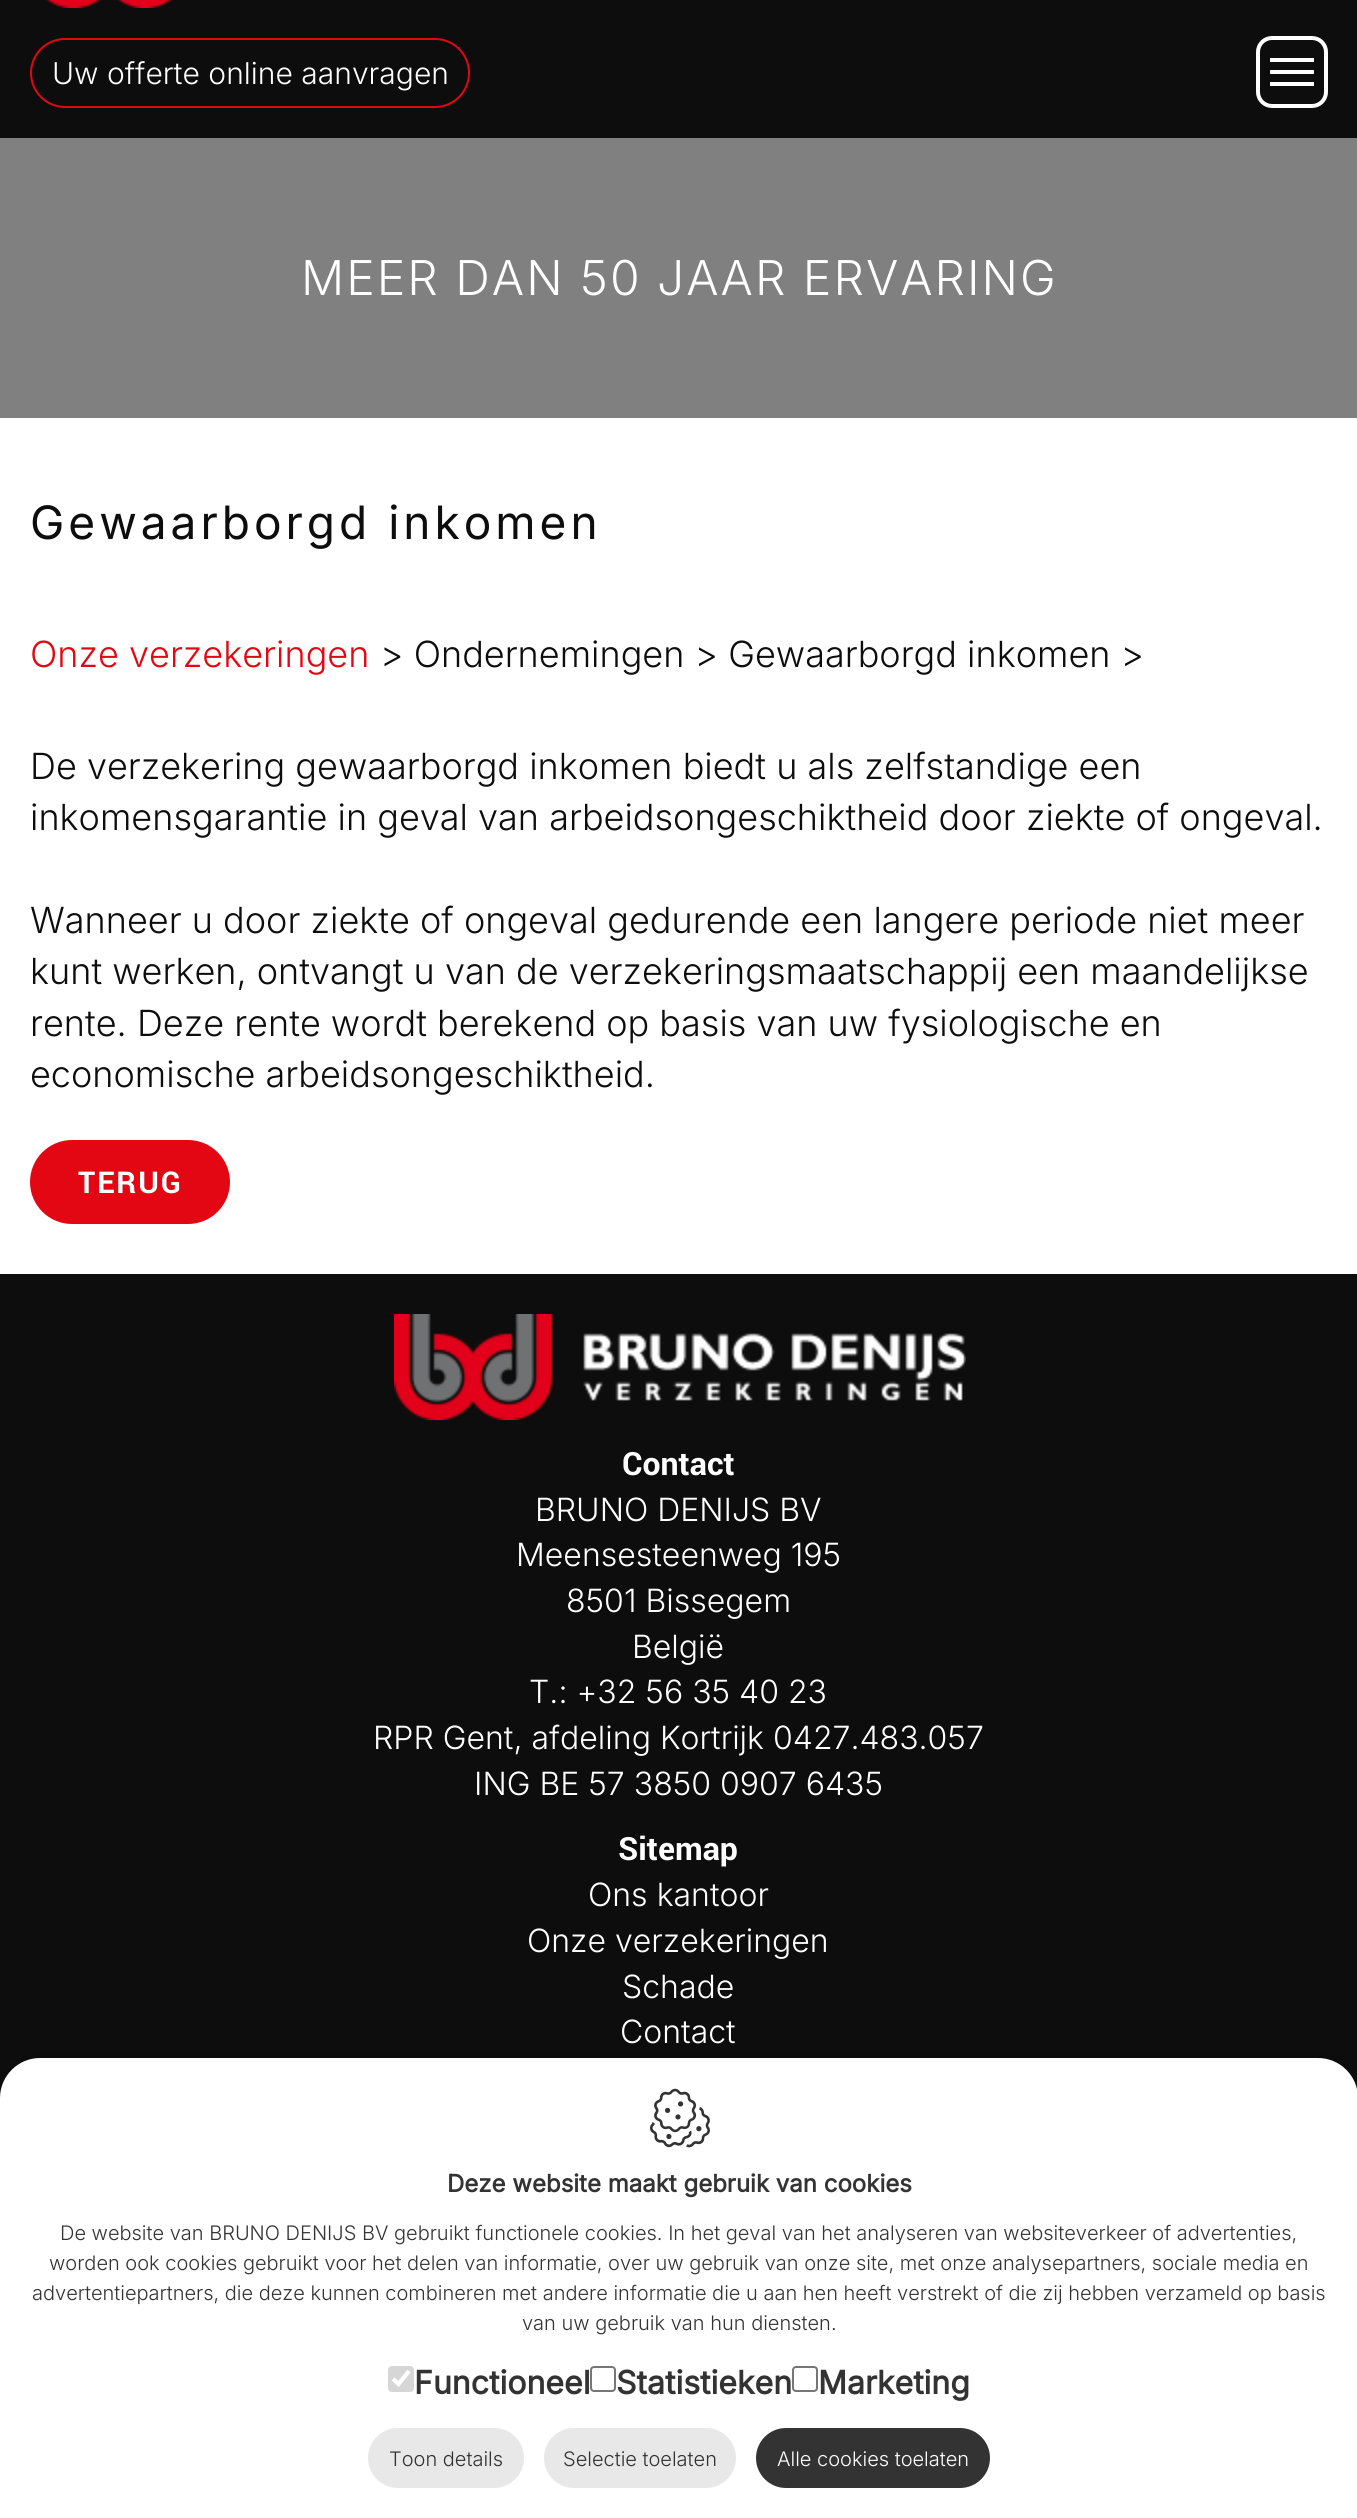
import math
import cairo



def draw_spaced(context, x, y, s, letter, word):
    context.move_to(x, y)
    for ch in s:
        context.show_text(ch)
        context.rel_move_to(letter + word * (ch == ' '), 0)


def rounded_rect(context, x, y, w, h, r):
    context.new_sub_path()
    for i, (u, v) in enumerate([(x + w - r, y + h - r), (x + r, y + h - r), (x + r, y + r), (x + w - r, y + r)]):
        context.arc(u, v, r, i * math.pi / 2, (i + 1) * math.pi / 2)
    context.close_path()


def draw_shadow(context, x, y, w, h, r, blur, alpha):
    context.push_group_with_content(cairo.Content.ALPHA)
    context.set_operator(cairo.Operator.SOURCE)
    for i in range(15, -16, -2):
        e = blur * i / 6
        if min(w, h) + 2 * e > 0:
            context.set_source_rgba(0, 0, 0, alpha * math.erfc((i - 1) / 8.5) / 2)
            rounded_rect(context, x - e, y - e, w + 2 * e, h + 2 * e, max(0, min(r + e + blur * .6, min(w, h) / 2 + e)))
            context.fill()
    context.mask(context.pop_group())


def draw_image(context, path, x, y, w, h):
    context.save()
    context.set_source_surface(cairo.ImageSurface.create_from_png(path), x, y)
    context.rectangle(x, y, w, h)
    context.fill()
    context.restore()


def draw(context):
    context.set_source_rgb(1, 1, 1)
    context.paint()
    context.set_source_rgb(13 / 255, 13 / 255, 13 / 255)
    context.rectangle(0, 0, 1357, 138)
    context.fill()
    draw_image(context, "images/1.png", 45, 0, 128, 8)
    rounded_rect(context, 31, 39, 438, 68, 34)
    context.set_source_rgb(227 / 255, 6 / 255, 19 / 255)
    context.stroke()
    rounded_rect(context, 1258, 38, 68, 68, 14)
    context.set_source_rgb(1, 1, 1)
    context.set_line_width(4)
    context.stroke()
    context.rectangle(1270, 58, 44, 4)
    context.fill()
    context.rectangle(1270, 70, 44, 4)
    context.fill()
    context.rectangle(1270, 82, 44, 4)
    context.fill()
    context.set_source_rgb(128 / 255, 128 / 255, 128 / 255)
    context.rectangle(0, 138, 1357, 280)
    context.fill()
    context.set_source_rgb(227 / 255, 6 / 255, 19 / 255)
    rounded_rect(context, 30, 1140, 200, 84, 42)
    context.fill()
    context.set_source_rgb(13 / 255, 13 / 255, 13 / 255)
    context.rectangle(0, 1274, 1357, 824)
    context.fill()
    context.set_source_rgb(0, 0, 0)
    draw_shadow(context, 2, 2060, 1354, 456, 38, 20, 0.15)
    context.set_source_rgb(1, 1, 1)
    context.new_path()
    context.move_to(40, 2058)
    context.line_to(1318, 2058)
    context.curve_to(1340, 2058, 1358, 2076, 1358, 2098)
    context.line_to(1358, 2518)
    context.line_to(0, 2518)
    context.line_to(0, 2098)
    context.curve_to(0, 2076, 18, 2058, 40, 2058)
    context.close_path()
    context.fill()
    draw_image(context, "images/2.png", 650, 2088, 60, 60)
    context.set_source_rgb(214 / 255, 214 / 255, 214 / 255)
    rounded_rect(context, 388, 2366, 26, 26, 4)
    context.fill()
    context.new_path()
    context.move_to(393, 2379)
    context.line_to(398.5, 2384)
    context.line_to(409, 2371)
    context.set_source_rgb(1, 1, 1)
    context.set_line_width(4.2)
    context.stroke()
    rounded_rect(context, 591, 2367, 24, 24, 3)
    context.set_source_rgb(118 / 255, 118 / 255, 118 / 255)
    context.set_line_width(2)
    context.stroke()
    rounded_rect(context, 793, 2367, 24, 24, 3)
    context.stroke()
    context.set_source_rgb(232 / 255, 232 / 255, 232 / 255)
    rounded_rect(context, 368, 2428, 156, 60, 30)
    context.fill()
    rounded_rect(context, 544, 2428, 192, 60, 30)
    context.fill()
    context.set_source_rgb(51 / 255, 51 / 255, 51 / 255)
    rounded_rect(context, 756, 2428, 234, 60, 30)
    context.fill()
    draw_image(context, "images/3.png", 394, 1314, 572, 106)
    context.select_font_face("Inter Light")
    context.set_font_size(30)
    context.set_source_rgb(1, 1, 1)
    context.move_to(52, 84)
    context.show_text("Uw offerte online aanvragen")
    context.set_font_size(48)
    draw_spaced(context, 301, 295, "MEER DAN 50 JAAR ERVARING", 2, 0)
    context.select_font_face("Inter")
    context.set_font_size(46)
    context.set_source_rgb(13 / 255, 13 / 255, 13 / 255)
    draw_spaced(context, 30, 539, "Gewaarborgd inkomen", 4, 0)
    context.select_font_face("Inter Light")
    context.set_font_size(36)
    context.set_source_rgb(227 / 255, 6 / 255, 19 / 255)
    context.move_to(30, 667)
    context.show_text("Onze verzekeringen")
    context.set_source_rgb(13 / 255, 13 / 255, 13 / 255)
    context.move_to(380, 667)
    context.show_text("> Ondernemingen > Gewaarborgd inkomen >")
    context.move_to(30, 779)
    context.show_text("De verzekering gewaarborgd inkomen biedt u als zelfstandige een")
    context.move_to(30, 830)
    context.show_text("inkomensgarantie in geval van arbeidsongeschiktheid door ziekte of ongeval.")
    context.move_to(30, 933)
    context.show_text("Wanneer u door ziekte of ongeval gedurende een langere periode niet meer")
    context.move_to(30, 984)
    context.show_text("kunt werken, ontvangt u van de verzekeringsmaatschappij een maandelijkse")
    context.move_to(30, 1036)
    context.show_text("rente. Deze rente wordt berekend op basis van uw fysiologische en")
    context.move_to(30, 1087)
    context.show_text("economische arbeidsongeschiktheid.")
    context.select_font_face("Roboto", cairo.FontSlant.NORMAL, cairo.FontWeight.BOLD)
    context.set_font_size(30)
    context.set_source_rgb(1, 1, 1)
    draw_spaced(context, 78, 1193, "TERUG", 2, 0)
    context.select_font_face("Inter", cairo.FontSlant.NORMAL, cairo.FontWeight.BOLD)
    context.set_font_size(24)
    context.set_source_rgb(51 / 255, 51 / 255, 51 / 255)
    context.move_to(447, 2192)
    context.show_text("Deze website maakt gebruik van cookies")
    context.select_font_face("Inter Light")
    context.set_font_size(20)
    context.move_to(60, 2240)
    context.show_text("De website van BRUNO DENIJS BV gebruikt functionele cookies. In het geval van het analyseren van websiteverkeer of advertenties,")
    context.move_to(49, 2270)
    context.show_text("worden ook cookies gebruikt voor het delen van informatie, over uw gebruik van onze site, met onze analysepartners, sociale media en")
    context.move_to(32, 2300)
    context.show_text("advertentiepartners, die deze kunnen combineren met andere informatie die u aan hen heeft verstrekt of die zij hebben verzameld op basis")
    context.move_to(522, 2330)
    context.show_text("van uw gebruik van hun diensten.")
    context.select_font_face("Inter", cairo.FontSlant.NORMAL, cairo.FontWeight.BOLD)
    context.set_font_size(32)
    context.move_to(414, 2394)
    context.show_text("Functioneel")
    context.move_to(616, 2394)
    context.show_text("Statistieken")
    context.move_to(818, 2394)
    context.show_text("Marketing")
    context.select_font_face("Inter Light")
    context.set_font_size(20)
    context.move_to(389, 2466)
    context.show_text("Toon details")
    context.move_to(563, 2466)
    context.show_text("Selectie toelaten")
    context.set_source_rgb(1, 1, 1)
    context.move_to(777, 2466)
    context.show_text("Alle cookies toelaten")
    context.select_font_face("Roboto", cairo.FontSlant.NORMAL, cairo.FontWeight.BOLD)
    context.set_font_size(32)
    context.move_to(622, 1475)
    context.show_text("Contact")
    context.select_font_face("Inter Light")
    context.move_to(535, 1521)
    context.show_text("BRUNO DENIJS BV")
    context.move_to(516, 1566)
    context.show_text("Meensesteenweg 195")
    context.move_to(566, 1612)
    context.show_text("8501 Bissegem")
    context.move_to(632, 1658)
    context.show_text("België")
    context.move_to(529, 1703)
    context.show_text("T.: +32 56 35 40 23")
    context.move_to(373, 1749)
    context.show_text("RPR Gent, afdeling Kortrijk 0427.483.057")
    context.move_to(474, 1795)
    context.show_text("ING BE 57 3850 0907 6435")
    context.select_font_face("Roboto", cairo.FontSlant.NORMAL, cairo.FontWeight.BOLD)
    context.move_to(618, 1860)
    context.show_text("Sitemap")
    context.select_font_face("Inter Light")
    context.move_to(588, 1906)
    context.show_text("Ons kantoor")
    context.move_to(527, 1952)
    context.show_text("Onze verzekeringen")
    context.move_to(622, 1998)
    context.show_text("Schade")
    context.move_to(620, 2043)
    context.show_text("Contact")


surface = cairo.ImageSurface(cairo.Format.RGB24, 1357, 2518)
context = cairo.Context(surface)
options = cairo.FontOptions()
options.set_hint_metrics(cairo.HintMetrics.OFF)
options.set_hint_style(cairo.HintStyle.NONE)
context.set_font_options(options)
context.set_miter_limit(4)
draw(context)
surface.write_to_png("out.png")
